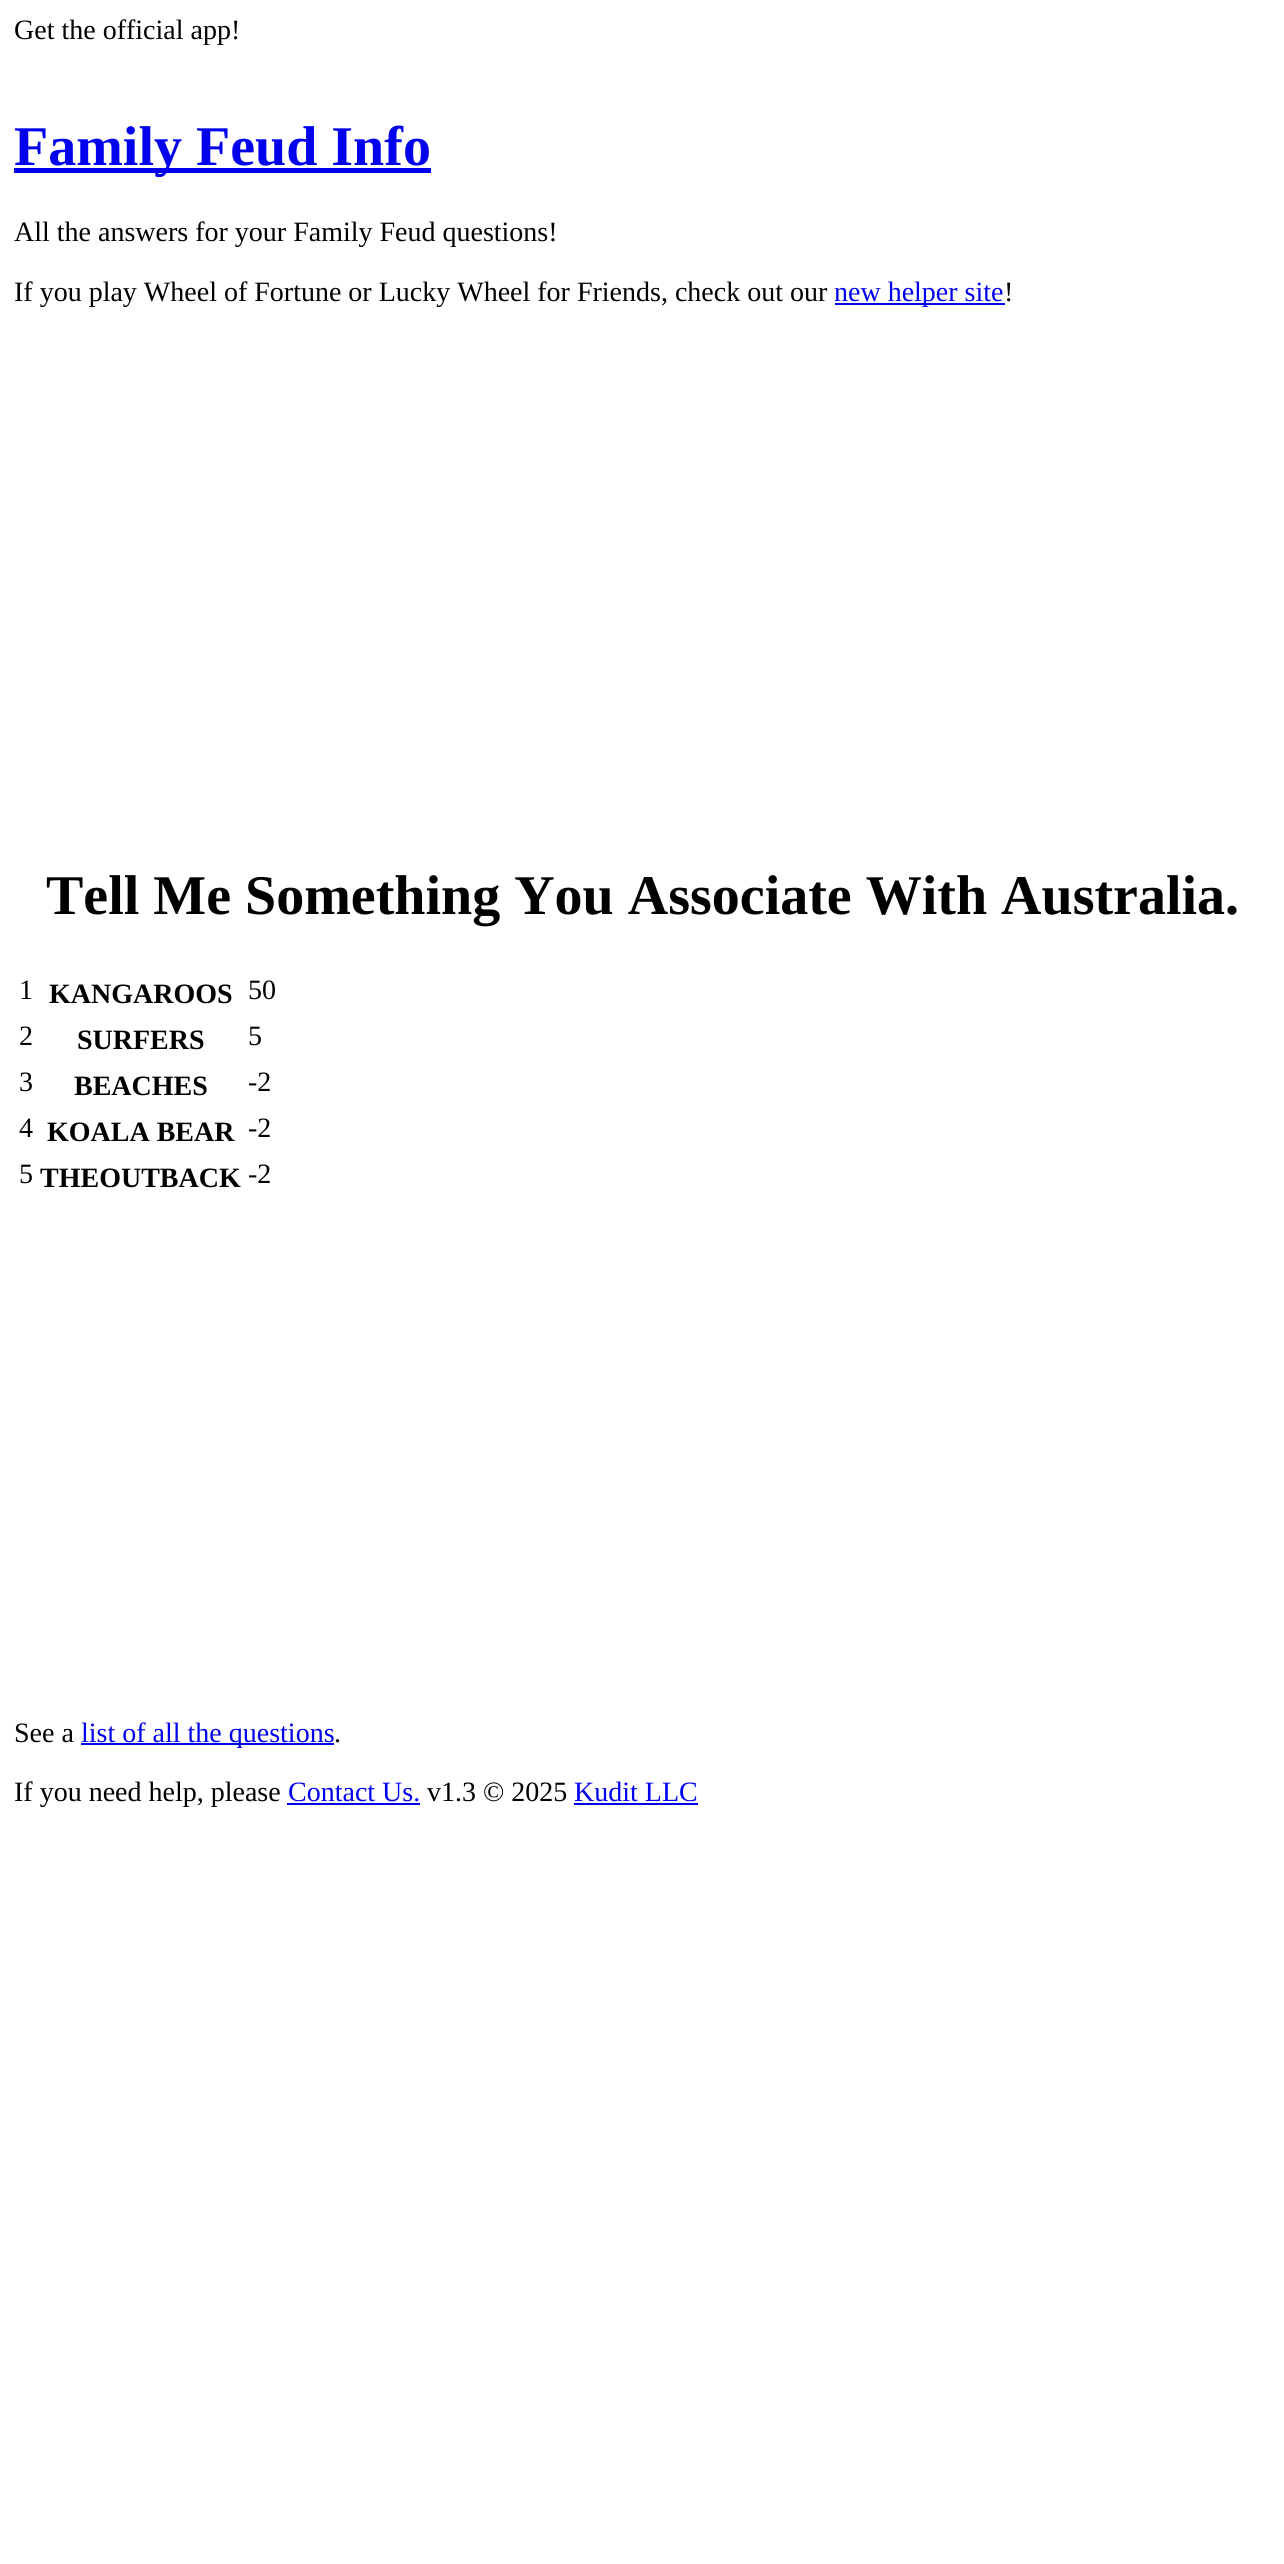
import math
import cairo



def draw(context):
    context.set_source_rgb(1, 1, 1)
    context.paint()
    context.set_source_rgb(0, 0, 238 / 255)
    context.rectangle(14, 168, 417, 5)
    context.fill()
    context.rectangle(835, 303, 170, 2)
    context.fill()
    context.rectangle(81, 1743, 253, 2)
    context.fill()
    context.rectangle(287, 1803, 133, 2)
    context.fill()
    context.rectangle(574, 1803, 124, 2)
    context.fill()
    context.select_font_face("Liberation Serif")
    context.set_font_size(28)
    context.set_source_rgb(0, 0, 0)
    context.move_to(14, 39)
    context.show_text("Get the official app!")
    context.select_font_face("Liberation Serif", cairo.FontSlant.NORMAL, cairo.FontWeight.BOLD)
    context.set_font_size(56)
    context.set_source_rgb(0, 0, 238 / 255)
    context.move_to(14, 165)
    context.show_text("Family Feud Info")
    context.select_font_face("Liberation Serif")
    context.set_font_size(28)
    context.set_source_rgb(0, 0, 0)
    context.move_to(14, 241)
    context.show_text("All the answers for your Family Feud questions!")
    context.move_to(14, 301)
    context.show_text("If you play Wheel of Fortune or Lucky Wheel for Friends, check out our")
    context.set_source_rgb(0, 0, 238 / 255)
    context.move_to(834, 301)
    context.show_text("new helper site")
    context.set_source_rgb(0, 0, 0)
    context.move_to(1004, 301)
    context.show_text("!")
    context.select_font_face("Liberation Serif", cairo.FontSlant.NORMAL, cairo.FontWeight.BOLD)
    context.set_font_size(56)
    context.move_to(46, 914)
    context.show_text("Tell Me Something You Associate With Australia.")
    context.select_font_face("Liberation Serif")
    context.set_font_size(28)
    context.move_to(19, 999)
    context.show_text("1")
    context.select_font_face("Liberation Serif", cairo.FontSlant.NORMAL, cairo.FontWeight.BOLD)
    context.move_to(49, 1003)
    context.show_text("KANGAROOS")
    context.select_font_face("Liberation Serif")
    context.move_to(248, 999)
    context.show_text("50")
    context.move_to(19, 1045)
    context.show_text("2")
    context.select_font_face("Liberation Serif", cairo.FontSlant.NORMAL, cairo.FontWeight.BOLD)
    context.move_to(77, 1049)
    context.show_text("SURFERS")
    context.select_font_face("Liberation Serif")
    context.move_to(248, 1045)
    context.show_text("5")
    context.move_to(19, 1091)
    context.show_text("3")
    context.select_font_face("Liberation Serif", cairo.FontSlant.NORMAL, cairo.FontWeight.BOLD)
    context.move_to(74, 1095)
    context.show_text("BEACHES")
    context.select_font_face("Liberation Serif")
    context.move_to(248, 1091)
    context.show_text("-2")
    context.move_to(19, 1137)
    context.show_text("4")
    context.select_font_face("Liberation Serif", cairo.FontSlant.NORMAL, cairo.FontWeight.BOLD)
    context.move_to(47, 1141)
    context.show_text("KOALA BEAR")
    context.select_font_face("Liberation Serif")
    context.move_to(248, 1137)
    context.show_text("-2")
    context.move_to(19, 1183)
    context.show_text("5")
    context.select_font_face("Liberation Serif", cairo.FontSlant.NORMAL, cairo.FontWeight.BOLD)
    context.move_to(40, 1187)
    context.show_text("THEOUTBACK")
    context.select_font_face("Liberation Serif")
    context.move_to(248, 1183)
    context.show_text("-2")
    context.move_to(14, 1742)
    context.show_text("See a")
    context.set_source_rgb(0, 0, 238 / 255)
    context.move_to(81, 1742)
    context.show_text("list of all the questions")
    context.set_source_rgb(0, 0, 0)
    context.move_to(334, 1742)
    context.show_text(".")
    context.move_to(14, 1801)
    context.show_text("If you need help, please")
    context.set_source_rgb(0, 0, 238 / 255)
    context.move_to(288, 1801)
    context.show_text("Contact Us.")
    context.set_source_rgb(0, 0, 0)
    context.move_to(427, 1801)
    context.show_text("v1.3 © 2025")
    context.set_source_rgb(0, 0, 238 / 255)
    context.move_to(574, 1801)
    context.show_text("Kudit LLC")


surface = cairo.ImageSurface(cairo.Format.RGB24, 1284, 2564)
context = cairo.Context(surface)
options = cairo.FontOptions()
options.set_hint_metrics(cairo.HintMetrics.OFF)
options.set_hint_style(cairo.HintStyle.NONE)
context.set_font_options(options)
context.set_miter_limit(4)
draw(context)
surface.write_to_png("out.png")
